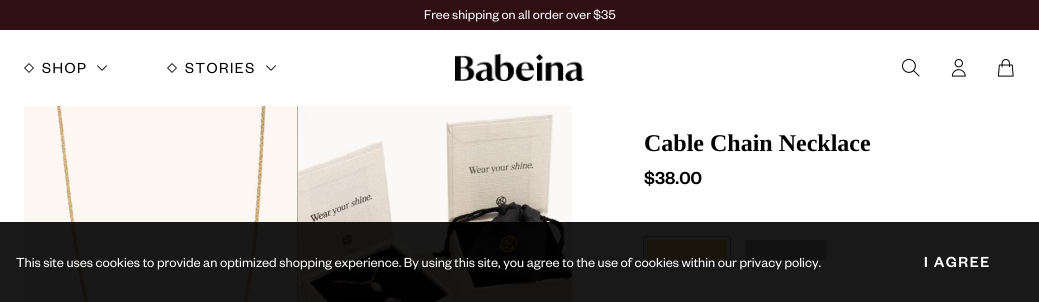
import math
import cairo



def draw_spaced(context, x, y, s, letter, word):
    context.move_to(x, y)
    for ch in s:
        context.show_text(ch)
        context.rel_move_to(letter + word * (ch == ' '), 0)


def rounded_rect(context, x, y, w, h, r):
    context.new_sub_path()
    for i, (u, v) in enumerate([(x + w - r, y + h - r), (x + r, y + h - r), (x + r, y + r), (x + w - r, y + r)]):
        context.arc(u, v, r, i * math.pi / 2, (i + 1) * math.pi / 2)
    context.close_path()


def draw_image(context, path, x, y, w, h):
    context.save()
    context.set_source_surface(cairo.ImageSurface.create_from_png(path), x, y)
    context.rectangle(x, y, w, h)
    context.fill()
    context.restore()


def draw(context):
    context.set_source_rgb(1, 1, 1)
    context.paint()
    context.set_source_rgb(48 / 255, 15 / 255, 19 / 255)
    context.rectangle(0, 0, 1039, 30)
    context.fill()
    draw_image(context, "images/1.png", 24, 63, 10, 10)
    draw_image(context, "images/2.png", 97, 65, 10, 6)
    draw_image(context, "images/1.png", 167, 63, 10, 10)
    draw_image(context, "images/2.png", 266, 65, 10, 6)
    draw_image(context, "images/3.png", 455, 54, 130, 28)
    draw_image(context, "images/4.png", 902, 59, 18, 18)
    draw_image(context, "images/5.png", 951, 59, 15, 18)
    draw_image(context, "images/6.png", 997, 59, 17, 18)
    draw_image(context, "images/7.png", 24, 106, 273, 196)
    context.set_source_rgb(178 / 255, 176 / 255, 161 / 255)
    context.rectangle(297, 106, 1, 196)
    context.fill()
    draw_image(context, "images/8.png", 298, 106, 274, 196)
    context.set_source_rgb(244 / 255, 204 / 255, 102 / 255)
    rounded_rect(context, 643.5, 236.5, 87, 27, 2.5)
    context.fill_preserve()
    context.set_source_rgb(153 / 255, 153 / 255, 153 / 255)
    context.set_line_width(1)
    context.stroke()
    rounded_rect(context, 645.5, 238.5, 83, 23, 0.5)
    context.set_source_rgb(1, 1, 1)
    context.set_line_width(3)
    context.stroke()
    context.set_source_rgb(184 / 255, 184 / 255, 184 / 255)
    rounded_rect(context, 744.5, 238.5, 83, 23, 0.5)
    context.fill_preserve()
    context.set_source_rgb(1, 1, 1)
    context.stroke()
    context.set_source_rgba(0, 0, 0, 0.9)
    context.rectangle(0, 222, 1039, 80)
    context.fill()
    context.select_font_face("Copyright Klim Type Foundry")
    context.set_font_size(14)
    context.set_source_rgb(1, 1, 1)
    context.move_to(424, 19)
    context.show_text("Free shipping on all order over $35")
    context.set_font_size(16)
    context.set_source_rgb(0, 0, 0)
    draw_spaced(context, 42, 73, "SHOP", 1.5, 0)
    draw_spaced(context, 185, 73, "STORIES", 1.5, 0)
    context.select_font_face("Liberation Serif", cairo.FontSlant.NORMAL, cairo.FontWeight.BOLD)
    context.set_font_size(24)
    context.move_to(644, 151)
    context.show_text("Cable Chain Necklace")
    context.select_font_face("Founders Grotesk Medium")
    context.set_font_size(19)
    context.move_to(644, 184)
    context.show_text("$38.00")
    context.select_font_face("Copyright Klim Type Foundry")
    context.set_font_size(14.4)
    context.set_source_rgb(1, 1, 1)
    context.move_to(16, 267)
    context.show_text("This site uses cookies to provide an optimized shopping experience. By using this site, you agree to the use of cookies within our privacy policy.")
    context.select_font_face("Founders Grotesk Medium")
    context.set_font_size(16)
    draw_spaced(context, 924, 267, "I AGREE", 1.5, 0)


surface = cairo.ImageSurface(cairo.Format.RGB24, 1039, 302)
context = cairo.Context(surface)
options = cairo.FontOptions()
options.set_hint_metrics(cairo.HintMetrics.OFF)
options.set_hint_style(cairo.HintStyle.NONE)
context.set_font_options(options)
context.set_miter_limit(4)
draw(context)
surface.write_to_png("out.png")
